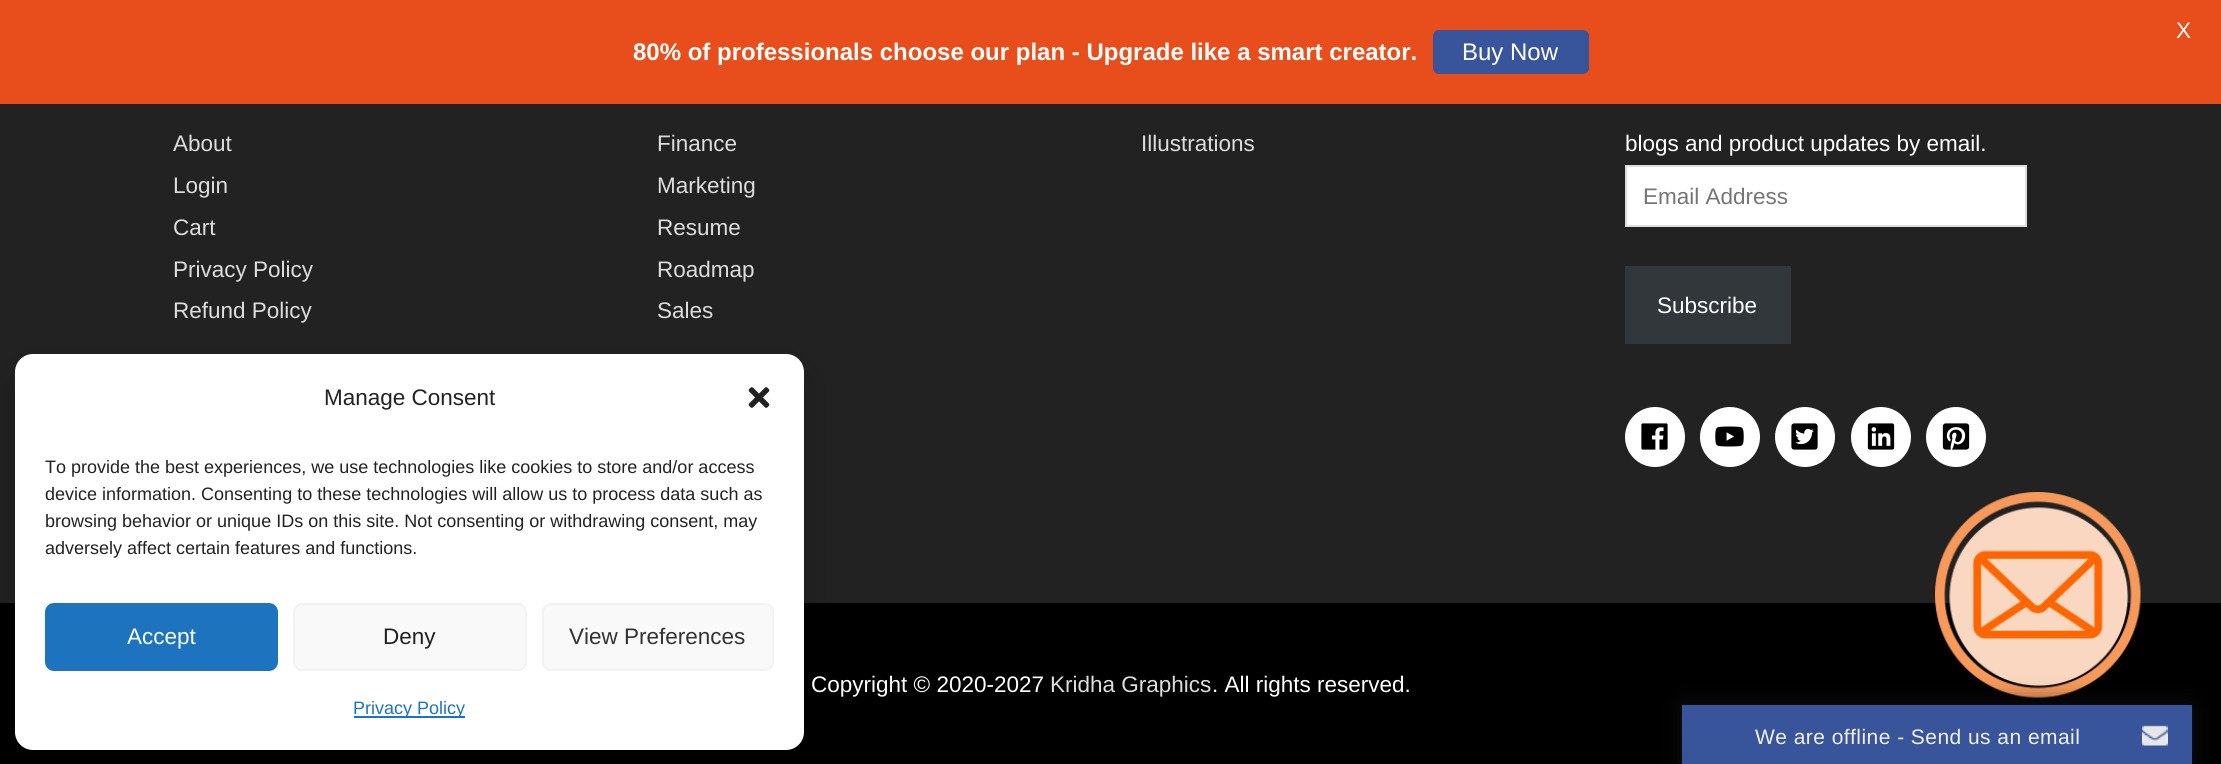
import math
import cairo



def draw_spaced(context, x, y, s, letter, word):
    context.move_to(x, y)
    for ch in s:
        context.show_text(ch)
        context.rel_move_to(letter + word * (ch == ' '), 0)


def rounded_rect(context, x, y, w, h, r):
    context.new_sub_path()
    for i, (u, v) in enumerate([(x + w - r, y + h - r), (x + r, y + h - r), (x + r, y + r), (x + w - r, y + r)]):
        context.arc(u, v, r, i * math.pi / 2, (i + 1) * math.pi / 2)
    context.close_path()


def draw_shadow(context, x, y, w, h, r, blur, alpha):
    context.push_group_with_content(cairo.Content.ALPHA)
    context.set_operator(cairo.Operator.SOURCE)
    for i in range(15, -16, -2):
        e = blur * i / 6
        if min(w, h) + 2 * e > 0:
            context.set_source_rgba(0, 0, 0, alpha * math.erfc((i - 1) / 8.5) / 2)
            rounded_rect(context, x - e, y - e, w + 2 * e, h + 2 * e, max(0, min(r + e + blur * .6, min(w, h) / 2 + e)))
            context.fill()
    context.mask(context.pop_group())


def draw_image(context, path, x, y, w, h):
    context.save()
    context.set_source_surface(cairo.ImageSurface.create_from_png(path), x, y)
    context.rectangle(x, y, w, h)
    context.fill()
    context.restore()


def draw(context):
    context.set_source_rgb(34 / 255, 34 / 255, 34 / 255)
    context.paint()
    context.set_source_rgb(232 / 255, 78 / 255, 27 / 255)
    context.rectangle(0, 0, 2221, 104)
    context.fill()
    context.set_source_rgb(56 / 255, 84 / 255, 155 / 255)
    rounded_rect(context, 1433, 30, 156, 44, 6)
    context.fill()
    context.set_source_rgb(1, 1, 1)
    context.rectangle(1626, 166, 400, 60)
    context.fill_preserve()
    context.set_source_rgb(221 / 255, 221 / 255, 221 / 255)
    context.stroke()
    context.set_source_rgb(50 / 255, 55 / 255, 60 / 255)
    context.rectangle(1625, 266, 166, 78)
    context.fill()
    context.set_source_rgb(1, 1, 1)
    context.arc(1655, 437, 30, 0, 2 * math.pi)
    context.fill()
    draw_image(context, "images/1.png", 1641, 423, 27, 27)
    context.arc(1730, 437, 30, 0, 2 * math.pi)
    context.fill()
    draw_image(context, "images/2.png", 1715, 426, 29, 21)
    context.arc(1805, 437, 30, 0, 2 * math.pi)
    context.fill()
    draw_image(context, "images/3.png", 1791, 423, 27, 27)
    context.arc(1881, 437, 30, 0, 2 * math.pi)
    context.fill()
    draw_image(context, "images/4.png", 1867, 423, 28, 27)
    context.arc(1956, 437, 30, 0, 2 * math.pi)
    context.fill()
    draw_image(context, "images/5.png", 1942, 423, 28, 27)
    context.set_source_rgb(0, 0, 0)
    context.rectangle(0, 603, 2221, 161)
    context.fill()
    context.set_source_rgb(0, 0, 0)
    draw_shadow(context, 15, 369, 789, 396, 18, 15, 0.19)
    context.set_source_rgb(1, 1, 1)
    rounded_rect(context, 15, 354, 789, 396, 18)
    context.fill()
    draw_image(context, "images/6.png", 748, 387, 22, 21)
    context.set_source_rgb(30 / 255, 115 / 255, 190 / 255)
    rounded_rect(context, 46, 604, 231, 66, 8)
    context.fill_preserve()
    context.stroke()
    context.set_source_rgb(249 / 255, 249 / 255, 249 / 255)
    rounded_rect(context, 294, 604, 232, 66, 8)
    context.fill_preserve()
    context.set_source_rgb(242 / 255, 242 / 255, 242 / 255)
    context.stroke()
    context.set_source_rgb(249 / 255, 249 / 255, 249 / 255)
    rounded_rect(context, 543, 604, 230, 66, 8)
    context.fill_preserve()
    context.set_source_rgb(242 / 255, 242 / 255, 242 / 255)
    context.stroke()
    context.set_source_rgb(30 / 255, 115 / 255, 190 / 255)
    context.rectangle(354, 716, 111, 2)
    context.fill()
    draw_image(context, "images/7.png", 1935, 492, 206, 206)
    context.set_source_rgb(17 / 255, 17 / 255, 17 / 255)
    draw_shadow(context, 1682, 705, 510, 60, 0, 11, 1)
    draw_image(context, "images/8.png", 1680, 705, 513, 57)
    context.set_source_rgb(56 / 255, 84 / 255, 155 / 255)
    context.rectangle(1682, 705, 510, 59)
    context.fill()
    draw_image(context, "images/9.png", 2142, 725, 26, 21)
    context.select_font_face("Liberation Sans")
    context.set_font_size(22.5)
    context.set_source_rgb(1, 1, 1)
    context.move_to(2176, 38)
    context.show_text("X")
    context.select_font_face("Liberation Sans", cairo.FontSlant.NORMAL, cairo.FontWeight.BOLD)
    context.set_font_size(24)
    context.move_to(633, 60)
    context.show_text("80% of professionals choose our plan - Upgrade like a smart creator.")
    context.select_font_face("Liberation Sans")
    context.move_to(1462, 60)
    context.show_text("Buy Now")
    context.set_font_size(22.5)
    context.set_source_rgb(221 / 255, 221 / 255, 221 / 255)
    context.move_to(173, 151)
    context.show_text("About")
    context.move_to(173, 193)
    context.show_text("Login")
    context.move_to(173, 235)
    context.show_text("Cart")
    context.move_to(173, 277)
    context.show_text("Privacy Policy")
    context.move_to(173, 318)
    context.show_text("Refund Policy")
    context.move_to(657, 151)
    context.show_text("Finance")
    context.move_to(657, 193)
    context.show_text("Marketing")
    context.move_to(657, 235)
    context.show_text("Resume")
    context.move_to(657, 277)
    context.show_text("Roadmap")
    context.move_to(657, 318)
    context.show_text("Sales")
    context.move_to(1141, 151)
    context.show_text("Illustrations")
    context.set_source_rgb(1, 1, 1)
    context.move_to(1625, 151)
    context.show_text("blogs and product updates by email.")
    context.set_source_rgb(117 / 255, 117 / 255, 117 / 255)
    context.move_to(1643, 204)
    context.show_text("Email Address")
    context.set_source_rgb(1, 1, 1)
    context.move_to(1657, 313)
    context.show_text("Subscribe")
    context.move_to(811, 692)
    context.show_text("Copyright © 2020-2027")
    context.set_source_rgb(221 / 255, 221 / 255, 221 / 255)
    context.move_to(1050, 692)
    context.show_text("Kridha Graphics")
    context.set_source_rgb(1, 1, 1)
    context.move_to(1212, 692)
    context.show_text(". All rights reserved.")
    context.set_source_rgb(34 / 255, 34 / 255, 34 / 255)
    context.move_to(324, 405)
    context.show_text("Manage Consent")
    context.set_font_size(18)
    context.move_to(45, 473)
    context.show_text("To provide the best experiences, we use technologies like cookies to store and/or access")
    context.move_to(45, 500)
    context.show_text("device information. Consenting to these technologies will allow us to process data such as")
    context.move_to(45, 527)
    context.show_text("browsing behavior or unique IDs on this site. Not consenting or withdrawing consent, may")
    context.move_to(45, 554)
    context.show_text("adversely affect certain features and functions.")
    context.set_font_size(22.5)
    context.set_source_rgb(1, 1, 1)
    context.move_to(127, 644)
    context.show_text("Accept")
    context.set_source_rgb(34 / 255, 34 / 255, 34 / 255)
    context.move_to(383, 644)
    context.show_text("Deny")
    context.set_source_rgb(51 / 255, 51 / 255, 51 / 255)
    context.move_to(569, 644)
    context.show_text("View Preferences")
    context.set_font_size(18)
    context.set_source_rgb(30 / 255, 115 / 255, 190 / 255)
    context.move_to(353, 714)
    context.show_text("Privacy Policy")
    context.set_font_size(21)
    context.set_source_rgb(241 / 255, 241 / 255, 241 / 255)
    draw_spaced(context, 1755, 744, "We are offline - Send us an email", 0.45, 0)


surface = cairo.ImageSurface(cairo.Format.RGB24, 2221, 764)
context = cairo.Context(surface)
options = cairo.FontOptions()
options.set_hint_metrics(cairo.HintMetrics.OFF)
options.set_hint_style(cairo.HintStyle.NONE)
context.set_font_options(options)
context.set_miter_limit(4)
draw(context)
surface.write_to_png("out.png")
